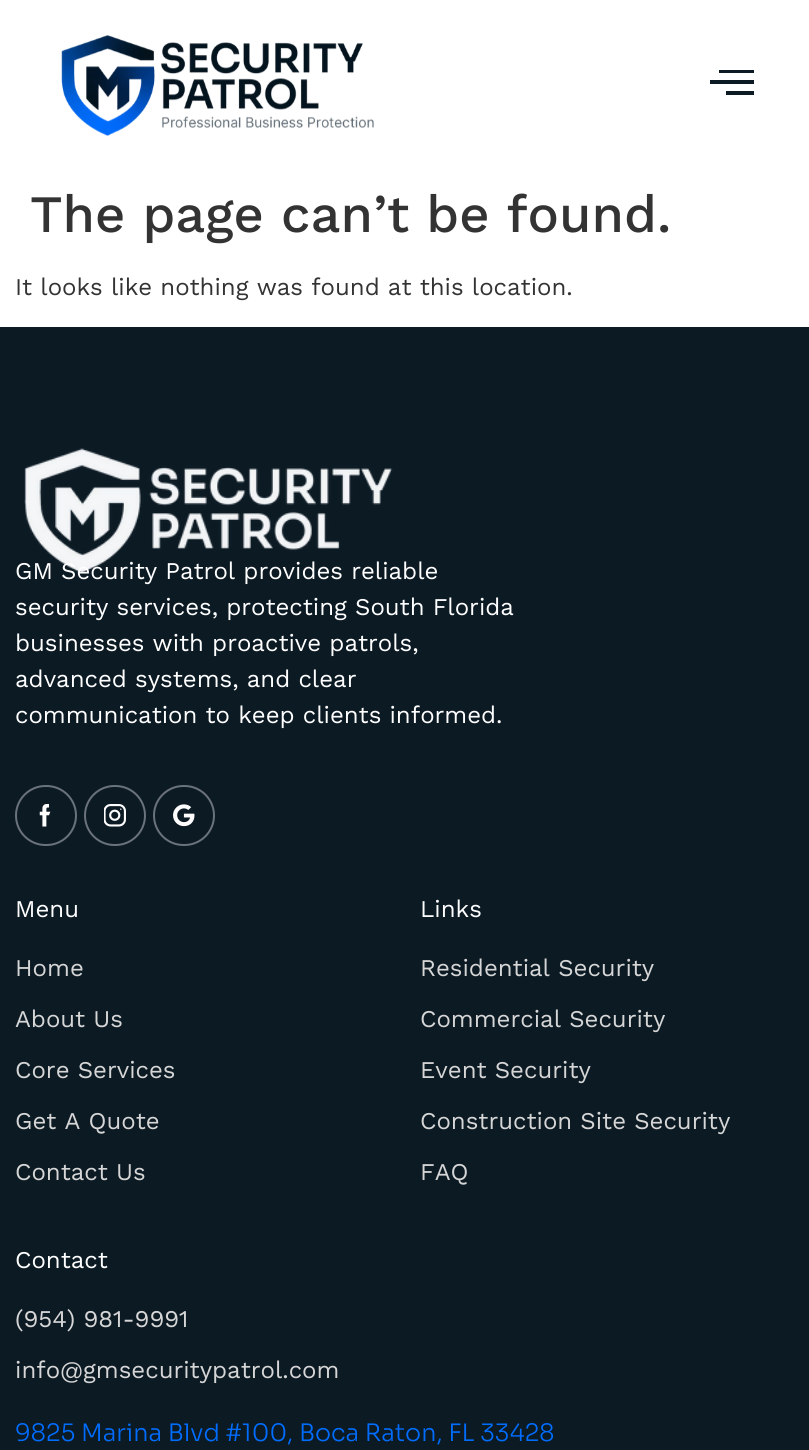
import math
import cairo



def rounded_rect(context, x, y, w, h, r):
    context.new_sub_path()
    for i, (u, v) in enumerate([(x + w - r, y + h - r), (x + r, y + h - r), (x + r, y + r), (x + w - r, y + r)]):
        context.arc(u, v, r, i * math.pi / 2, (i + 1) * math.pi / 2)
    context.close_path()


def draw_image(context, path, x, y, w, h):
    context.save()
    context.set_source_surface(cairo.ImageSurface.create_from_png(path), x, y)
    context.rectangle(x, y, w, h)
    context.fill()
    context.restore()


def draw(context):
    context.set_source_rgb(1, 1, 1)
    context.paint()
    draw_image(context, "images/1.png", 61, 35, 313, 101)
    context.set_source_rgb(12 / 255, 26 / 255, 36 / 255)
    context.new_path()
    context.move_to(710, 84)
    context.line_to(754, 84)
    context.line_to(754, 80)
    context.line_to(710, 80)
    context.close_path()
    context.move_to(726, 95)
    context.line_to(754, 95)
    context.line_to(754, 91)
    context.line_to(726, 91)
    context.close_path()
    context.move_to(719, 70)
    context.line_to(719, 73)
    context.line_to(754, 73)
    context.line_to(754, 70)
    context.close_path()
    context.fill()
    context.rectangle(0, 327, 809, 1123)
    context.fill()
    draw_image(context, "images/2.png", 24, 448, 369, 125)
    rounded_rect(context, 16, 786, 60, 59, 29.5)
    context.set_source_rgb(105 / 255, 114 / 255, 125 / 255)
    context.stroke()
    draw_image(context, "images/3.png", 39, 804, 12, 23)
    rounded_rect(context, 85, 786, 60, 59, 29.5)
    context.stroke()
    draw_image(context, "images/4.png", 104, 804, 22, 23)
    rounded_rect(context, 154, 786, 60, 59, 29.5)
    context.stroke()
    draw_image(context, "images/5.png", 173, 804, 22, 23)
    context.select_font_face("Work Sans Medium")
    context.set_font_size(52.5)
    context.set_source_rgb(51 / 255, 51 / 255, 51 / 255)
    context.move_to(30, 232)
    context.show_text("The page can’t be found.")
    context.select_font_face("Work Sans")
    context.set_font_size(24)
    context.move_to(15, 295)
    context.show_text("It looks like nothing was found at this location.")
    context.set_source_rgb(1, 1, 1)
    context.move_to(15, 579)
    context.show_text("GM Security Patrol provides reliable")
    context.move_to(15, 615)
    context.show_text("security services, protecting South Florida")
    context.move_to(15, 651)
    context.show_text("businesses with proactive patrols,")
    context.move_to(15, 687)
    context.show_text("advanced systems, and clear")
    context.move_to(15, 723)
    context.show_text("communication to keep clients informed.")
    context.move_to(15, 917)
    context.show_text("Menu")
    context.set_source_rgb(214 / 255, 214 / 255, 214 / 255)
    context.move_to(15, 976)
    context.show_text("Home")
    context.move_to(15, 1027)
    context.show_text("About Us")
    context.move_to(15, 1078)
    context.show_text("Core Services")
    context.move_to(15, 1129)
    context.show_text("Get A Quote")
    context.move_to(15, 1180)
    context.show_text("Contact Us")
    context.set_source_rgb(1, 1, 1)
    context.move_to(420, 917)
    context.show_text("Links")
    context.set_source_rgb(214 / 255, 214 / 255, 214 / 255)
    context.move_to(420, 976)
    context.show_text("Residential Security")
    context.move_to(420, 1027)
    context.show_text("Commercial Security")
    context.move_to(420, 1078)
    context.show_text("Event Security")
    context.move_to(420, 1129)
    context.show_text("Construction Site Security")
    context.move_to(420, 1180)
    context.show_text("FAQ")
    context.set_source_rgb(1, 1, 1)
    context.move_to(15, 1268)
    context.show_text("Contact")
    context.set_source_rgb(214 / 255, 214 / 255, 214 / 255)
    context.move_to(15, 1327)
    context.show_text("(954) 981-9991")
    context.move_to(15, 1378)
    context.show_text("info@gmsecuritypatrol.com")
    context.select_font_face("Sora Light")
    context.set_source_rgb(0, 109 / 255, 1)
    context.move_to(15, 1441)
    context.show_text("9825 Marina Blvd #100, Boca Raton, FL 33428")


surface = cairo.ImageSurface(cairo.Format.RGB24, 809, 1450)
context = cairo.Context(surface)
options = cairo.FontOptions()
options.set_hint_metrics(cairo.HintMetrics.OFF)
options.set_hint_style(cairo.HintStyle.NONE)
context.set_font_options(options)
context.set_miter_limit(4)
draw(context)
surface.write_to_png("out.png")
